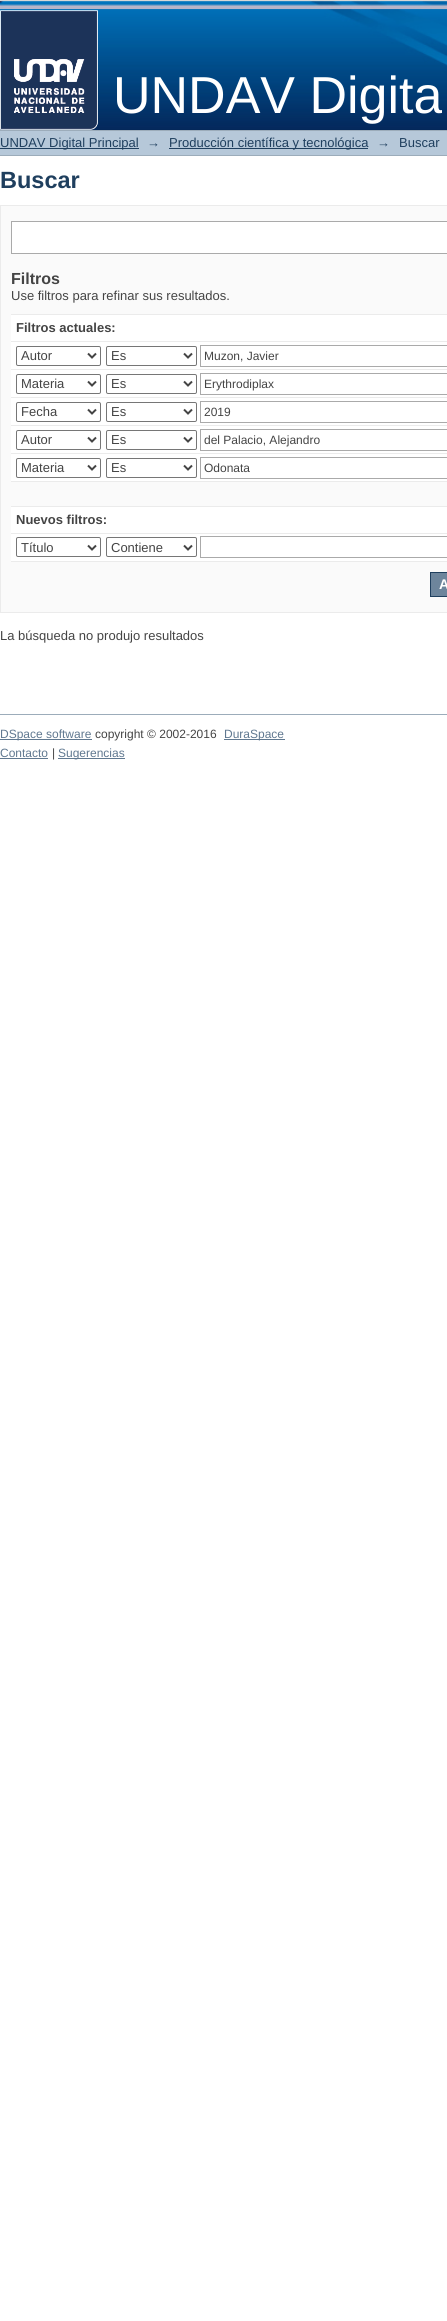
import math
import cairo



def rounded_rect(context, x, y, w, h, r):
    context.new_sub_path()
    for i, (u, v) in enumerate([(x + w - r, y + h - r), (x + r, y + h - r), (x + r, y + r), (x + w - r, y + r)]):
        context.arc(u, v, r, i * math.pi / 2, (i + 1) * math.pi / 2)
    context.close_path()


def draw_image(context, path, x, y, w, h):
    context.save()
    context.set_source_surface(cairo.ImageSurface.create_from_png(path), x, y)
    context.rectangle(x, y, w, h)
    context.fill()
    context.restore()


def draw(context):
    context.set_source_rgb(1, 1, 1)
    context.paint()
    draw_image(context, "images/1.png", 0, 0, 447, 130)
    draw_image(context, "images/2.png", 0, 10, 98, 120)
    context.set_source_rgb(182 / 255, 200 / 255, 217 / 255)
    context.rectangle(0, 131, 447, 24)
    context.fill()
    context.set_source_rgb(156 / 255, 172 / 255, 186 / 255)
    context.rectangle(0, 130, 447, 1)
    context.fill()
    context.rectangle(0, 155, 447, 1)
    context.fill()
    context.set_source_rgb(31 / 255, 63 / 255, 94 / 255)
    context.rectangle(0, 148, 139, 1)
    context.fill()
    context.rectangle(169, 148, 199, 1)
    context.fill()
    context.set_source_rgb(250 / 255, 250 / 255, 250 / 255)
    context.rectangle(0.5, 205.5, 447, 407)
    context.fill_preserve()
    context.set_source_rgb(235 / 255, 235 / 255, 235 / 255)
    context.set_line_width(1)
    context.stroke()
    context.set_source_rgb(1, 1, 1)
    context.rectangle(11.5, 221.5, 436, 32)
    context.fill_preserve()
    context.set_source_rgb(170 / 255, 170 / 255, 170 / 255)
    context.stroke()
    context.set_source_rgb(1, 1, 1)
    context.rectangle(11, 315, 436, 246)
    context.fill()
    context.set_source_rgb(235 / 255, 235 / 255, 235 / 255)
    context.rectangle(11, 314, 436, 1)
    context.fill()
    context.rectangle(11, 341, 436, 1)
    context.fill()
    rounded_rect(context, 16.5, 346.5, 84, 19, 1.5)
    context.set_source_rgb(118 / 255, 118 / 255, 118 / 255)
    context.stroke()
    context.new_path()
    context.move_to(88, 353.5)
    context.line_to(92, 357.5)
    context.line_to(96, 353.5)
    context.set_source_rgb(68 / 255, 68 / 255, 68 / 255)
    context.set_line_width(2)
    context.stroke()
    rounded_rect(context, 106.5, 346.5, 90, 19, 1.5)
    context.set_source_rgb(118 / 255, 118 / 255, 118 / 255)
    context.set_line_width(1)
    context.stroke()
    context.new_path()
    context.move_to(184, 353.5)
    context.line_to(188, 357.5)
    context.line_to(192, 353.5)
    context.set_source_rgb(68 / 255, 68 / 255, 68 / 255)
    context.set_line_width(2)
    context.stroke()
    context.rectangle(200.5, 345.5, 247, 21)
    context.set_source_rgb(170 / 255, 170 / 255, 170 / 255)
    context.set_line_width(1)
    context.stroke()
    context.set_source_rgb(235 / 255, 235 / 255, 235 / 255)
    context.rectangle(11, 369, 436, 1)
    context.fill()
    rounded_rect(context, 16.5, 374.5, 84, 19, 1.5)
    context.set_source_rgb(118 / 255, 118 / 255, 118 / 255)
    context.stroke()
    context.new_path()
    context.move_to(88, 381.5)
    context.line_to(92, 385.5)
    context.line_to(96, 381.5)
    context.set_source_rgb(68 / 255, 68 / 255, 68 / 255)
    context.set_line_width(2)
    context.stroke()
    rounded_rect(context, 106.5, 374.5, 90, 19, 1.5)
    context.set_source_rgb(118 / 255, 118 / 255, 118 / 255)
    context.set_line_width(1)
    context.stroke()
    context.new_path()
    context.move_to(184, 381.5)
    context.line_to(188, 385.5)
    context.line_to(192, 381.5)
    context.set_source_rgb(68 / 255, 68 / 255, 68 / 255)
    context.set_line_width(2)
    context.stroke()
    context.rectangle(200.5, 373.5, 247, 21)
    context.set_source_rgb(170 / 255, 170 / 255, 170 / 255)
    context.set_line_width(1)
    context.stroke()
    context.set_source_rgb(235 / 255, 235 / 255, 235 / 255)
    context.rectangle(11, 397, 436, 1)
    context.fill()
    rounded_rect(context, 16.5, 402.5, 84, 19, 1.5)
    context.set_source_rgb(118 / 255, 118 / 255, 118 / 255)
    context.stroke()
    context.new_path()
    context.move_to(88, 409.5)
    context.line_to(92, 413.5)
    context.line_to(96, 409.5)
    context.set_source_rgb(68 / 255, 68 / 255, 68 / 255)
    context.set_line_width(2)
    context.stroke()
    rounded_rect(context, 106.5, 402.5, 90, 19, 1.5)
    context.set_source_rgb(118 / 255, 118 / 255, 118 / 255)
    context.set_line_width(1)
    context.stroke()
    context.new_path()
    context.move_to(184, 409.5)
    context.line_to(188, 413.5)
    context.line_to(192, 409.5)
    context.set_source_rgb(68 / 255, 68 / 255, 68 / 255)
    context.set_line_width(2)
    context.stroke()
    context.rectangle(200.5, 401.5, 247, 21)
    context.set_source_rgb(170 / 255, 170 / 255, 170 / 255)
    context.set_line_width(1)
    context.stroke()
    context.set_source_rgb(235 / 255, 235 / 255, 235 / 255)
    context.rectangle(11, 425, 436, 1)
    context.fill()
    rounded_rect(context, 16.5, 430.5, 84, 19, 1.5)
    context.set_source_rgb(118 / 255, 118 / 255, 118 / 255)
    context.stroke()
    context.new_path()
    context.move_to(88, 437.5)
    context.line_to(92, 441.5)
    context.line_to(96, 437.5)
    context.set_source_rgb(68 / 255, 68 / 255, 68 / 255)
    context.set_line_width(2)
    context.stroke()
    rounded_rect(context, 106.5, 430.5, 90, 19, 1.5)
    context.set_source_rgb(118 / 255, 118 / 255, 118 / 255)
    context.set_line_width(1)
    context.stroke()
    context.new_path()
    context.move_to(184, 437.5)
    context.line_to(188, 441.5)
    context.line_to(192, 437.5)
    context.set_source_rgb(68 / 255, 68 / 255, 68 / 255)
    context.set_line_width(2)
    context.stroke()
    context.rectangle(200.5, 429.5, 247, 21)
    context.set_source_rgb(170 / 255, 170 / 255, 170 / 255)
    context.set_line_width(1)
    context.stroke()
    context.set_source_rgb(235 / 255, 235 / 255, 235 / 255)
    context.rectangle(11, 453, 436, 1)
    context.fill()
    rounded_rect(context, 16.5, 458.5, 84, 19, 1.5)
    context.set_source_rgb(118 / 255, 118 / 255, 118 / 255)
    context.stroke()
    context.new_path()
    context.move_to(88, 465.5)
    context.line_to(92, 469.5)
    context.line_to(96, 465.5)
    context.set_source_rgb(68 / 255, 68 / 255, 68 / 255)
    context.set_line_width(2)
    context.stroke()
    rounded_rect(context, 106.5, 458.5, 90, 19, 1.5)
    context.set_source_rgb(118 / 255, 118 / 255, 118 / 255)
    context.set_line_width(1)
    context.stroke()
    context.new_path()
    context.move_to(184, 465.5)
    context.line_to(188, 469.5)
    context.line_to(192, 465.5)
    context.set_source_rgb(68 / 255, 68 / 255, 68 / 255)
    context.set_line_width(2)
    context.stroke()
    context.rectangle(200.5, 457.5, 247, 21)
    context.set_source_rgb(170 / 255, 170 / 255, 170 / 255)
    context.set_line_width(1)
    context.stroke()
    context.set_source_rgb(250 / 255, 250 / 255, 250 / 255)
    context.rectangle(11, 482, 436, 24)
    context.fill()
    context.set_source_rgb(235 / 255, 235 / 255, 235 / 255)
    context.rectangle(11, 481, 436, 1)
    context.fill()
    context.rectangle(11, 506, 436, 1)
    context.fill()
    context.rectangle(11, 533, 436, 1)
    context.fill()
    rounded_rect(context, 16.5, 537.5, 84, 19, 1.5)
    context.set_source_rgb(118 / 255, 118 / 255, 118 / 255)
    context.stroke()
    context.new_path()
    context.move_to(88, 545.5)
    context.line_to(92, 549.5)
    context.line_to(96, 545.5)
    context.set_source_rgb(68 / 255, 68 / 255, 68 / 255)
    context.set_line_width(2)
    context.stroke()
    rounded_rect(context, 106.5, 537.5, 90, 19, 1.5)
    context.set_source_rgb(118 / 255, 118 / 255, 118 / 255)
    context.set_line_width(1)
    context.stroke()
    context.new_path()
    context.move_to(184, 545.5)
    context.line_to(188, 549.5)
    context.line_to(192, 545.5)
    context.set_source_rgb(68 / 255, 68 / 255, 68 / 255)
    context.set_line_width(2)
    context.stroke()
    context.rectangle(200.5, 536.5, 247, 21)
    context.set_source_rgb(170 / 255, 170 / 255, 170 / 255)
    context.set_line_width(1)
    context.stroke()
    context.set_source_rgb(235 / 255, 235 / 255, 235 / 255)
    context.rectangle(11, 561, 436, 1)
    context.fill()
    context.set_source_rgb(109 / 255, 133 / 255, 156 / 255)
    context.rectangle(430.5, 572.5, 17, 24)
    context.fill_preserve()
    context.set_source_rgb(31 / 255, 63 / 255, 94 / 255)
    context.stroke()
    context.set_source_rgb(156 / 255, 172 / 255, 186 / 255)
    context.rectangle(0, 714, 447, 1)
    context.fill()
    context.set_source_rgb(96 / 255, 120 / 255, 144 / 255)
    context.rectangle(0, 739, 92, 1)
    context.fill()
    context.rectangle(224, 739, 61, 1)
    context.fill()
    context.rectangle(0, 758, 48, 1)
    context.fill()
    context.rectangle(58, 758, 67, 1)
    context.fill()
    context.select_font_face("Liberation Sans")
    context.set_font_size(52)
    context.set_source_rgb(1, 1, 1)
    context.move_to(113, 113)
    context.show_text("UNDAV Digita")
    context.set_font_size(13)
    context.set_source_rgb(31 / 255, 63 / 255, 94 / 255)
    context.move_to(0, 147)
    context.show_text("UNDAV Digital Principal")
    context.move_to(147, 147)
    context.show_text("→")
    context.move_to(169, 147)
    context.show_text("Producción científica y tecnológica")
    context.move_to(377, 147)
    context.show_text("→")
    context.move_to(399, 147)
    context.show_text("Buscar")
    context.select_font_face("Liberation Sans", cairo.FontSlant.NORMAL, cairo.FontWeight.BOLD)
    context.set_font_size(23.5)
    context.move_to(0, 188)
    context.show_text("Buscar")
    context.set_font_size(16)
    context.set_source_rgb(68 / 255, 68 / 255, 68 / 255)
    context.move_to(11, 284)
    context.show_text("Filtros")
    context.select_font_face("Liberation Sans")
    context.set_font_size(13)
    context.move_to(11, 300)
    context.show_text("Use filtros para refinar sus resultados.")
    context.select_font_face("Liberation Sans", cairo.FontSlant.NORMAL, cairo.FontWeight.BOLD)
    context.move_to(16, 332)
    context.show_text("Filtros actuales:")
    context.select_font_face("Liberation Sans")
    context.move_to(21, 360)
    context.show_text("Autor")
    context.move_to(111, 360)
    context.show_text("Es")
    context.set_font_size(12)
    context.move_to(204, 360)
    context.show_text("Muzon, Javier")
    context.set_font_size(13)
    context.move_to(21, 388)
    context.show_text("Materia")
    context.move_to(111, 388)
    context.show_text("Es")
    context.set_font_size(12)
    context.move_to(204, 388)
    context.show_text("Erythrodiplax")
    context.set_font_size(13)
    context.move_to(21, 416)
    context.show_text("Fecha")
    context.move_to(111, 416)
    context.show_text("Es")
    context.set_font_size(12)
    context.move_to(204, 416)
    context.show_text("2019")
    context.set_font_size(13)
    context.move_to(21, 444)
    context.show_text("Autor")
    context.move_to(111, 444)
    context.show_text("Es")
    context.set_font_size(12)
    context.move_to(204, 444)
    context.show_text("del Palacio, Alejandro")
    context.set_font_size(13)
    context.move_to(21, 472)
    context.show_text("Materia")
    context.move_to(111, 472)
    context.show_text("Es")
    context.set_font_size(12)
    context.move_to(204, 472)
    context.show_text("Odonata")
    context.select_font_face("Liberation Sans", cairo.FontSlant.NORMAL, cairo.FontWeight.BOLD)
    context.set_font_size(13)
    context.move_to(16, 524)
    context.show_text("Nuevos filtros:")
    context.select_font_face("Liberation Sans")
    context.move_to(21, 552)
    context.show_text("Título")
    context.move_to(111, 552)
    context.show_text("Contiene")
    context.select_font_face("Liberation Sans", cairo.FontSlant.NORMAL, cairo.FontWeight.BOLD)
    context.set_font_size(14)
    context.set_source_rgb(1, 1, 1)
    context.move_to(439, 589)
    context.show_text("A")
    context.select_font_face("Liberation Sans")
    context.set_font_size(13)
    context.set_source_rgb(68 / 255, 68 / 255, 68 / 255)
    context.move_to(0, 640)
    context.show_text("La búsqueda no produjo resultados")
    context.set_font_size(12)
    context.set_source_rgb(96 / 255, 120 / 255, 144 / 255)
    context.move_to(0, 738)
    context.show_text("DSpace software")
    context.set_source_rgb(68 / 255, 68 / 255, 68 / 255)
    context.move_to(95, 738)
    context.show_text("copyright © 2002-2016")
    context.set_source_rgb(96 / 255, 120 / 255, 144 / 255)
    context.move_to(224, 738)
    context.show_text("DuraSpace")
    context.move_to(0, 757)
    context.show_text("Contacto")
    context.set_source_rgb(68 / 255, 68 / 255, 68 / 255)
    context.move_to(52, 757)
    context.show_text("|")
    context.set_source_rgb(96 / 255, 120 / 255, 144 / 255)
    context.move_to(58, 757)
    context.show_text("Sugerencias")


surface = cairo.ImageSurface(cairo.Format.RGB24, 447, 2321)
context = cairo.Context(surface)
options = cairo.FontOptions()
options.set_hint_metrics(cairo.HintMetrics.OFF)
options.set_hint_style(cairo.HintStyle.NONE)
context.set_font_options(options)
context.set_miter_limit(4)
draw(context)
surface.write_to_png("out.png")
